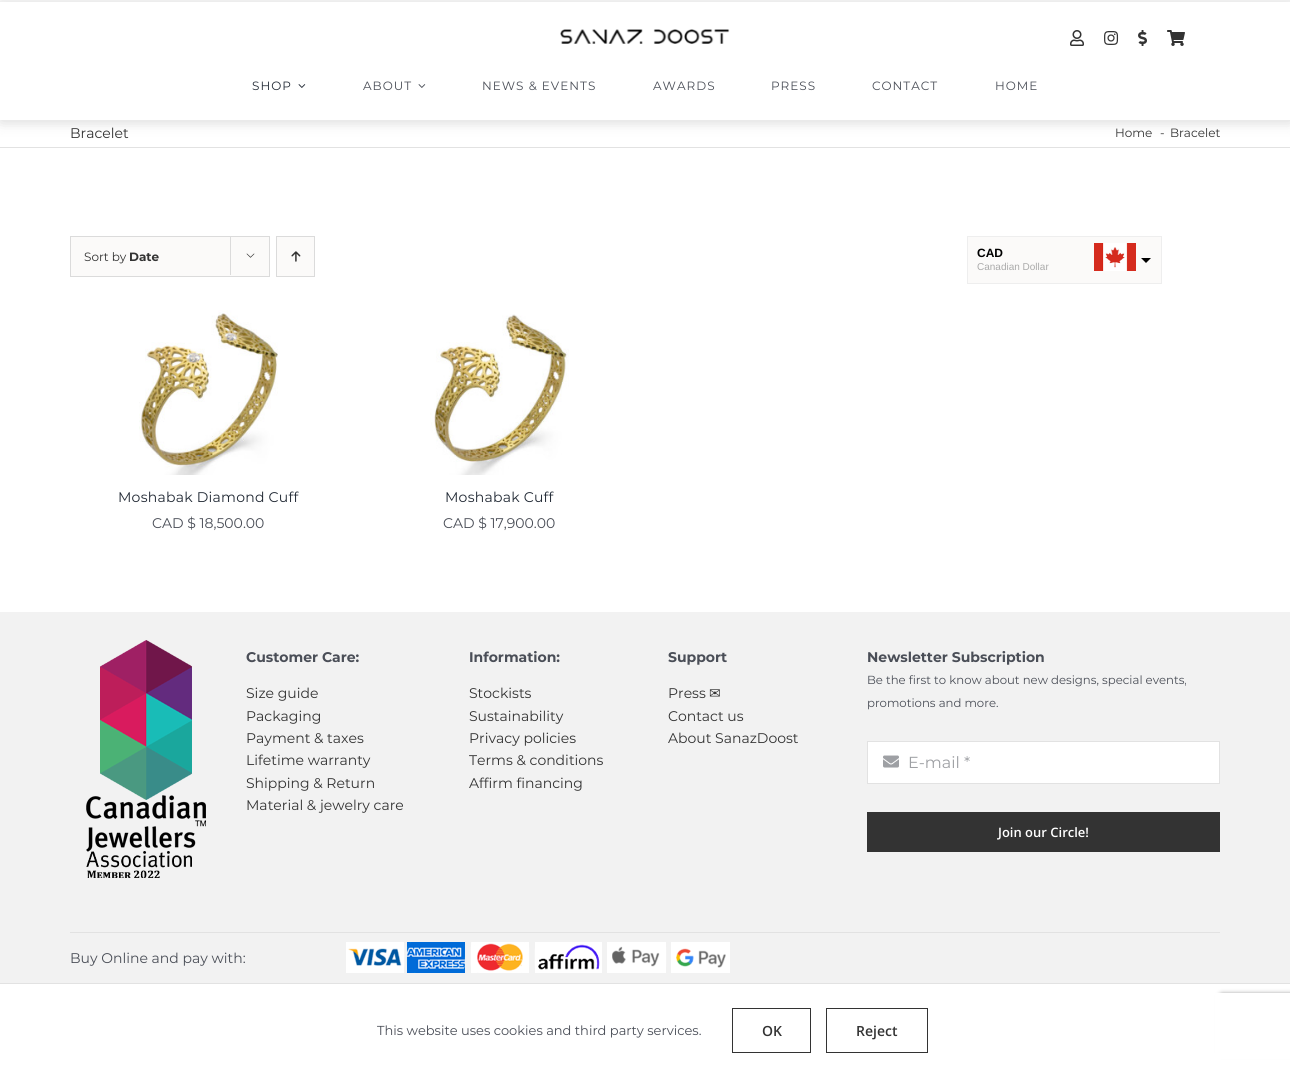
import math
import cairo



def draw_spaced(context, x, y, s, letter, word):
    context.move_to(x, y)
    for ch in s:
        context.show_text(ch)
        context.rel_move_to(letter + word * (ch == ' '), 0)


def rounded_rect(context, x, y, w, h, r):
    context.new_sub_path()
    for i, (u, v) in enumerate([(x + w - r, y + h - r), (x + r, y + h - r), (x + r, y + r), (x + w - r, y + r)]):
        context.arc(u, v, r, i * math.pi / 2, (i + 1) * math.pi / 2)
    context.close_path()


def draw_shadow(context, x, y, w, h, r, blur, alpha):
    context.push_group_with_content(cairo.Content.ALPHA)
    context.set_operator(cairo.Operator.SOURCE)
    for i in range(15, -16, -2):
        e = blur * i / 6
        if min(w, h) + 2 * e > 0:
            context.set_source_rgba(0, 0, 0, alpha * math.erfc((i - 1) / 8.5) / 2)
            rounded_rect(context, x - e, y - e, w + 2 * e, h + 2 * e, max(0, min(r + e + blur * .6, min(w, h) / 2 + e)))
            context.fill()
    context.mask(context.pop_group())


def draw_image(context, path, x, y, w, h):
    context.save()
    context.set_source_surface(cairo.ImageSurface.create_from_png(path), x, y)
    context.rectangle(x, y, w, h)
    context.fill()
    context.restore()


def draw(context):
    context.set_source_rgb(1, 1, 1)
    context.paint()
    context.set_source_rgb(0, 0, 0)
    draw_shadow(context, 1, 3, 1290, 118, 0, 7.5, 0.17)
    context.set_source_rgb(1, 1, 1)
    context.rectangle(0, 2, 1290, 118)
    context.fill()
    draw_image(context, "images/1.png", 560, 29, 170, 15)
    draw_image(context, "images/2.png", 1070, 30, 14, 16)
    draw_image(context, "images/3.png", 1104, 31, 15, 14)
    draw_image(context, "images/4.png", 1138, 30, 9, 16)
    draw_image(context, "images/5.png", 1167, 30, 18, 16)
    draw_image(context, "images/6.png", 298, 84, 8, 4)
    draw_image(context, "images/7.png", 418, 84, 8, 4)
    context.set_source_rgb(226 / 255, 226 / 255, 226 / 255)
    context.rectangle(0, 147, 1290, 1)
    context.fill()
    context.set_source_rgb(251 / 255, 250 / 255, 249 / 255)
    context.rectangle(70.5, 236.5, 199, 40)
    context.fill_preserve()
    context.set_source_rgb(219 / 255, 219 / 255, 219 / 255)
    context.set_line_width(1)
    context.stroke()
    context.rectangle(230, 236, 1, 39)
    context.fill()
    draw_image(context, "images/8.png", 246, 253, 9, 5)
    context.set_source_rgb(251 / 255, 250 / 255, 249 / 255)
    context.rectangle(276.5, 236.5, 38, 40)
    context.fill_preserve()
    context.set_source_rgb(219 / 255, 219 / 255, 219 / 255)
    context.stroke()
    draw_image(context, "images/9.png", 291, 251, 10, 11)
    context.set_source_rgb(238 / 255, 238 / 255, 238 / 255)
    context.rectangle(967, 236, 195, 48)
    context.fill()
    context.set_source_rgb(251 / 255, 250 / 255, 249 / 255)
    context.rectangle(968, 237, 193, 46)
    context.fill()
    draw_image(context, "images/10.png", 1094, 243, 42, 28)
    context.set_source_rgb(0, 0, 0)
    context.new_path()
    context.move_to(1141, 258)
    context.line_to(1151, 258)
    context.line_to(1146, 263)
    context.close_path()
    context.fill()
    draw_image(context, "images/11.png", 139, 310, 139, 165)
    draw_image(context, "images/12.png", 430, 314, 139, 161)
    context.set_source_rgb(242 / 255, 242 / 255, 242 / 255)
    context.rectangle(0, 612, 1290, 371)
    context.fill()
    draw_image(context, "images/13.png", 86, 640, 120, 238)
    context.set_source_rgb(1, 1, 1)
    context.rectangle(867.5, 741.5, 352, 42)
    context.fill_preserve()
    context.set_source_rgb(226 / 255, 226 / 255, 226 / 255)
    context.stroke()
    draw_image(context, "images/14.png", 883, 755, 16, 13)
    context.set_source_rgb(51 / 255, 51 / 255, 51 / 255)
    context.rectangle(867, 812, 353, 40)
    context.fill()
    context.set_source_rgb(226 / 255, 226 / 255, 226 / 255)
    context.rectangle(70, 932, 1150, 1)
    context.fill()
    draw_image(context, "images/15.png", 346, 942, 384, 31)
    context.rectangle(0, 983, 1290, 1)
    context.fill()
    context.set_source_rgb(128 / 255, 128 / 255, 128 / 255)
    draw_shadow(context, 1220, 994, 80, 60, 2, 2.5, 1)
    context.set_source_rgb(1, 1, 1)
    context.rectangle(1215, 993, 75, 66)
    context.fill()
    context.rectangle(732.5, 1008.5, 78, 44)
    context.set_source_rgb(51 / 255, 51 / 255, 51 / 255)
    context.stroke()
    context.rectangle(826.5, 1008.5, 101, 44)
    context.stroke()
    context.select_font_face("Montserrat")
    context.set_font_size(12)
    context.set_source_rgb(33 / 255, 41 / 255, 52 / 255)
    draw_spaced(context, 252, 90, "SHOP", 1, 0)
    context.set_source_rgb(74 / 255, 78 / 255, 87 / 255)
    draw_spaced(context, 363, 90, "ABOUT", 1, 0)
    draw_spaced(context, 482, 90, "NEWS & EVENTS", 1, 0)
    draw_spaced(context, 653, 90, "AWARDS", 1, 0)
    draw_spaced(context, 771, 90, "PRESS", 1, 0)
    draw_spaced(context, 872, 90, "CONTACT", 1, 0)
    draw_spaced(context, 995, 90, "HOME", 1, 0)
    context.set_font_size(14)
    context.set_source_rgb(51 / 255, 51 / 255, 51 / 255)
    context.move_to(70, 138)
    context.show_text("Bracelet")
    context.set_font_size(12)
    context.move_to(1115, 137)
    context.show_text("Home")
    context.move_to(1160, 137)
    context.show_text("-")
    context.move_to(1170, 137)
    context.show_text("Bracelet")
    context.move_to(84, 261)
    context.show_text("Sort by")
    context.select_font_face("Montserrat", cairo.FontSlant.NORMAL, cairo.FontWeight.BOLD)
    context.move_to(129, 261)
    context.show_text("Date")
    context.select_font_face("Liberation Sans", cairo.FontSlant.NORMAL, cairo.FontWeight.BOLD)
    context.set_source_rgb(0, 0, 0)
    context.move_to(977, 257)
    context.show_text("CAD")
    context.select_font_face("Liberation Sans")
    context.set_font_size(10)
    context.set_source_rgb(170 / 255, 170 / 255, 170 / 255)
    context.move_to(977, 270)
    context.show_text("Canadian Dollar")
    context.select_font_face("Montserrat")
    context.set_font_size(14)
    context.set_source_rgb(33 / 255, 41 / 255, 52 / 255)
    draw_spaced(context, 118, 502, "Moshabak Diamond Cuff", 0.25, 0)
    context.set_source_rgb(74 / 255, 78 / 255, 87 / 255)
    context.move_to(152, 528)
    context.show_text("CAD $ 18,500.00")
    context.set_source_rgb(33 / 255, 41 / 255, 52 / 255)
    draw_spaced(context, 445, 502, "Moshabak Cuff", 0.25, 0)
    context.set_source_rgb(74 / 255, 78 / 255, 87 / 255)
    context.move_to(443, 528)
    context.show_text("CAD $ 17,900.00")
    context.select_font_face("Montserrat", cairo.FontSlant.NORMAL, cairo.FontWeight.BOLD)
    context.move_to(246, 662)
    context.show_text("Customer Care:")
    context.select_font_face("Montserrat")
    context.set_source_rgb(51 / 255, 51 / 255, 51 / 255)
    context.move_to(246, 698)
    context.show_text("Size guide")
    context.move_to(246, 721)
    context.show_text("Packaging")
    context.move_to(246, 743)
    context.show_text("Payment & taxes")
    context.move_to(246, 765)
    context.show_text("Lifetime warranty")
    context.move_to(246, 788)
    context.show_text("Shipping & Return")
    context.move_to(246, 810)
    context.show_text("Material & jewelry care")
    context.select_font_face("Montserrat", cairo.FontSlant.NORMAL, cairo.FontWeight.BOLD)
    context.set_source_rgb(74 / 255, 78 / 255, 87 / 255)
    context.move_to(469, 662)
    context.show_text("Information:")
    context.select_font_face("Montserrat")
    context.set_source_rgb(51 / 255, 51 / 255, 51 / 255)
    context.move_to(469, 698)
    context.show_text("Stockists")
    context.move_to(469, 721)
    context.show_text("Sustainability")
    context.move_to(469, 743)
    context.show_text("Privacy policies")
    context.move_to(469, 765)
    context.show_text("Terms & conditions")
    context.move_to(469, 788)
    context.show_text("Affirm financing")
    context.select_font_face("Montserrat", cairo.FontSlant.NORMAL, cairo.FontWeight.BOLD)
    context.set_source_rgb(74 / 255, 78 / 255, 87 / 255)
    context.move_to(668, 662)
    context.show_text("Support")
    context.select_font_face("Montserrat")
    context.set_source_rgb(51 / 255, 51 / 255, 51 / 255)
    context.move_to(668, 698)
    context.show_text("Press")
    context.select_font_face("DejaVu Sans")
    context.move_to(709, 698)
    context.show_text("✉")
    context.select_font_face("Montserrat")
    context.move_to(668, 721)
    context.show_text("Contact us")
    context.move_to(668, 743)
    context.show_text("About SanazDoost")
    context.select_font_face("Montserrat", cairo.FontSlant.NORMAL, cairo.FontWeight.BOLD)
    context.set_source_rgb(74 / 255, 78 / 255, 87 / 255)
    context.move_to(867, 662)
    context.show_text("Newsletter Subscription")
    context.select_font_face("Montserrat")
    context.set_font_size(11.7)
    context.move_to(867, 684)
    context.show_text("Be the first to know about new designs, special events,")
    context.move_to(867, 707)
    context.show_text("promotions and more.")
    context.set_font_size(16)
    context.set_source_rgb(158 / 255, 160 / 255, 164 / 255)
    context.move_to(908, 768)
    context.show_text("E-mail *")
    context.select_font_face("Open Sans SemiBold")
    context.set_font_size(13)
    context.set_source_rgb(1, 1, 1)
    context.move_to(998, 837)
    context.show_text("Join our Circle!")
    context.select_font_face("Montserrat")
    context.set_font_size(14)
    context.set_source_rgb(74 / 255, 78 / 255, 87 / 255)
    context.move_to(70, 963)
    context.show_text("Buy Online and pay with:")
    context.set_font_size(13)
    context.move_to(377, 1035)
    context.show_text("This website uses cookies and third party services.")
    context.select_font_face("Open Sans SemiBold")
    context.set_font_size(14)
    context.set_source_rgb(51 / 255, 51 / 255, 51 / 255)
    context.move_to(762, 1036)
    context.show_text("OK")
    context.move_to(856, 1036)
    context.show_text("Reject")


surface = cairo.ImageSurface(cairo.Format.RGB24, 1290, 1068)
context = cairo.Context(surface)
options = cairo.FontOptions()
options.set_hint_metrics(cairo.HintMetrics.OFF)
options.set_hint_style(cairo.HintStyle.NONE)
context.set_font_options(options)
context.set_miter_limit(4)
draw(context)
surface.write_to_png("out.png")
